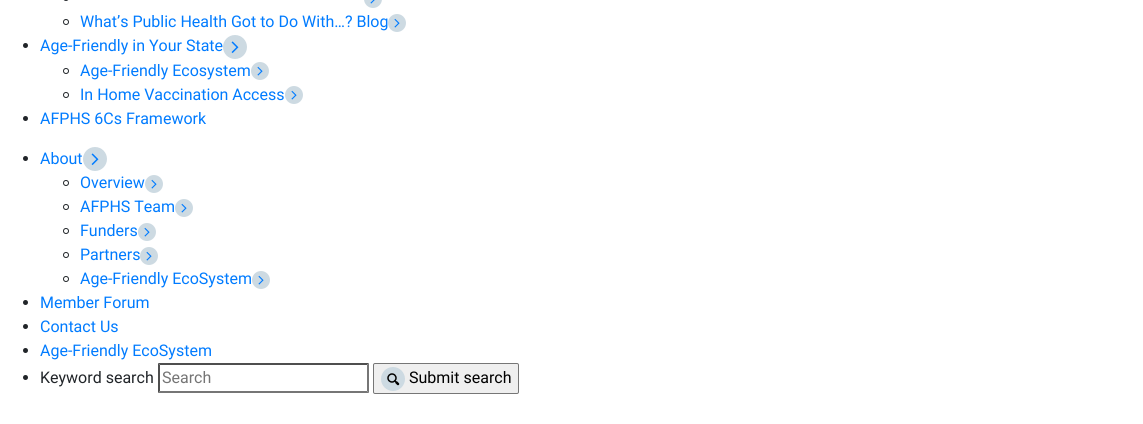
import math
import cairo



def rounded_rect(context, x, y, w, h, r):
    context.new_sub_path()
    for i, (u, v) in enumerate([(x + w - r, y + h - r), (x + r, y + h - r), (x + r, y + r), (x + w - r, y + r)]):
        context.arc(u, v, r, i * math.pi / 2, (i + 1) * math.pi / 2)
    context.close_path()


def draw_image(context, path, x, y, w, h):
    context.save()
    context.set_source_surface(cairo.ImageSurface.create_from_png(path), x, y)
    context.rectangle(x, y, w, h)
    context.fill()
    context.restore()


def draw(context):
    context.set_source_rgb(1, 1, 1)
    context.paint()
    rounded_rect(context, 63.5, -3.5, 5, 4, 2.5)
    context.set_source_rgb(33 / 255, 37 / 255, 41 / 255)
    context.set_line_width(1)
    context.stroke()
    draw_image(context, "images/1.png", 364, 0, 18, 8)
    context.arc(66, 22, 2.5, 0, 2 * math.pi)
    context.stroke()
    draw_image(context, "images/2.png", 388, 14, 18, 18)
    context.arc(25.5, 45.5, 2.5, 0, 2 * math.pi)
    context.fill()
    draw_image(context, "images/3.png", 223, 35, 24, 24)
    context.arc(66, 71, 2.5, 0, 2 * math.pi)
    context.stroke()
    draw_image(context, "images/2.png", 251, 62, 18, 18)
    context.arc(66, 95, 2.5, 0, 2 * math.pi)
    context.stroke()
    draw_image(context, "images/2.png", 285, 86, 18, 18)
    context.arc(25.5, 118.5, 2.5, 0, 2 * math.pi)
    context.fill()
    context.arc(25.5, 158.5, 2.5, 0, 2 * math.pi)
    context.fill()
    draw_image(context, "images/3.png", 83, 147, 24, 24)
    context.arc(66, 183, 2.5, 0, 2 * math.pi)
    context.stroke()
    draw_image(context, "images/2.png", 145, 175, 18, 18)
    context.arc(66, 207, 2.5, 0, 2 * math.pi)
    context.stroke()
    draw_image(context, "images/2.png", 175, 199, 18, 18)
    context.arc(66, 231, 2.5, 0, 2 * math.pi)
    context.stroke()
    draw_image(context, "images/2.png", 138, 223, 18, 18)
    context.arc(66, 255, 2.5, 0, 2 * math.pi)
    context.stroke()
    draw_image(context, "images/2.png", 140, 247, 18, 18)
    context.arc(66, 279, 2.5, 0, 2 * math.pi)
    context.stroke()
    draw_image(context, "images/2.png", 252, 271, 18, 18)
    context.arc(25.5, 302.5, 2.5, 0, 2 * math.pi)
    context.fill()
    context.arc(25.5, 326.5, 2.5, 0, 2 * math.pi)
    context.fill()
    context.arc(25.5, 350.5, 2.5, 0, 2 * math.pi)
    context.fill()
    context.arc(25.5, 377.5, 2.5, 0, 2 * math.pi)
    context.fill()
    context.set_source_rgb(79 / 255, 79 / 255, 79 / 255)
    context.new_path()
    context.move_to(158, 363)
    context.line_to(369, 363)
    context.line_to(367, 365)
    context.line_to(160, 365)
    context.close_path()
    context.fill()
    context.set_source_rgb(118 / 255, 118 / 255, 118 / 255)
    context.new_path()
    context.move_to(369, 363)
    context.line_to(369, 393)
    context.line_to(367, 391)
    context.line_to(367, 365)
    context.close_path()
    context.fill()
    context.new_path()
    context.move_to(369, 393)
    context.line_to(158, 393)
    context.line_to(160, 391)
    context.line_to(367, 391)
    context.close_path()
    context.fill()
    context.set_source_rgb(79 / 255, 79 / 255, 79 / 255)
    context.new_path()
    context.move_to(158, 393)
    context.line_to(158, 363)
    context.line_to(160, 365)
    context.line_to(160, 391)
    context.close_path()
    context.fill()
    context.set_source_rgb(239 / 255, 239 / 255, 239 / 255)
    rounded_rect(context, 373.5, 363.5, 145, 30, 1.5)
    context.fill_preserve()
    context.set_source_rgb(118 / 255, 118 / 255, 118 / 255)
    context.stroke()
    draw_image(context, "images/4.png", 381, 367, 24, 24)
    context.select_font_face("Roboto")
    context.set_font_size(16)
    context.set_source_rgb(0, 123 / 255, 1)
    context.move_to(80, 27)
    context.show_text("What’s Public Health Got to Do With…? Blog")
    context.move_to(40, 51)
    context.show_text("Age-Friendly in Your State")
    context.move_to(80, 76)
    context.show_text("Age-Friendly Ecosystem")
    context.move_to(80, 100)
    context.show_text("In Home Vaccination Access")
    context.move_to(40, 124)
    context.show_text("AFPHS 6Cs Framework")
    context.move_to(40, 164)
    context.show_text("About")
    context.move_to(80, 188)
    context.show_text("Overview")
    context.move_to(80, 212)
    context.show_text("AFPHS Team")
    context.move_to(80, 236)
    context.show_text("Funders")
    context.move_to(80, 260)
    context.show_text("Partners")
    context.move_to(80, 284)
    context.show_text("Age-Friendly EcoSystem")
    context.move_to(40, 308)
    context.show_text("Member Forum")
    context.move_to(40, 332)
    context.show_text("Contact Us")
    context.move_to(40, 356)
    context.show_text("Age-Friendly EcoSystem")
    context.set_source_rgb(33 / 255, 37 / 255, 41 / 255)
    context.move_to(40, 383)
    context.show_text("Keyword search")
    context.set_source_rgb(117 / 255, 117 / 255, 117 / 255)
    context.move_to(162, 383)
    context.show_text("Search")
    context.set_source_rgb(0, 0, 0)
    context.move_to(409, 383)
    context.show_text("Submit search")


surface = cairo.ImageSurface(cairo.Format.RGB24, 1143, 424)
context = cairo.Context(surface)
options = cairo.FontOptions()
options.set_hint_metrics(cairo.HintMetrics.OFF)
options.set_hint_style(cairo.HintStyle.NONE)
context.set_font_options(options)
context.set_miter_limit(4)
draw(context)
surface.write_to_png("out.png")
